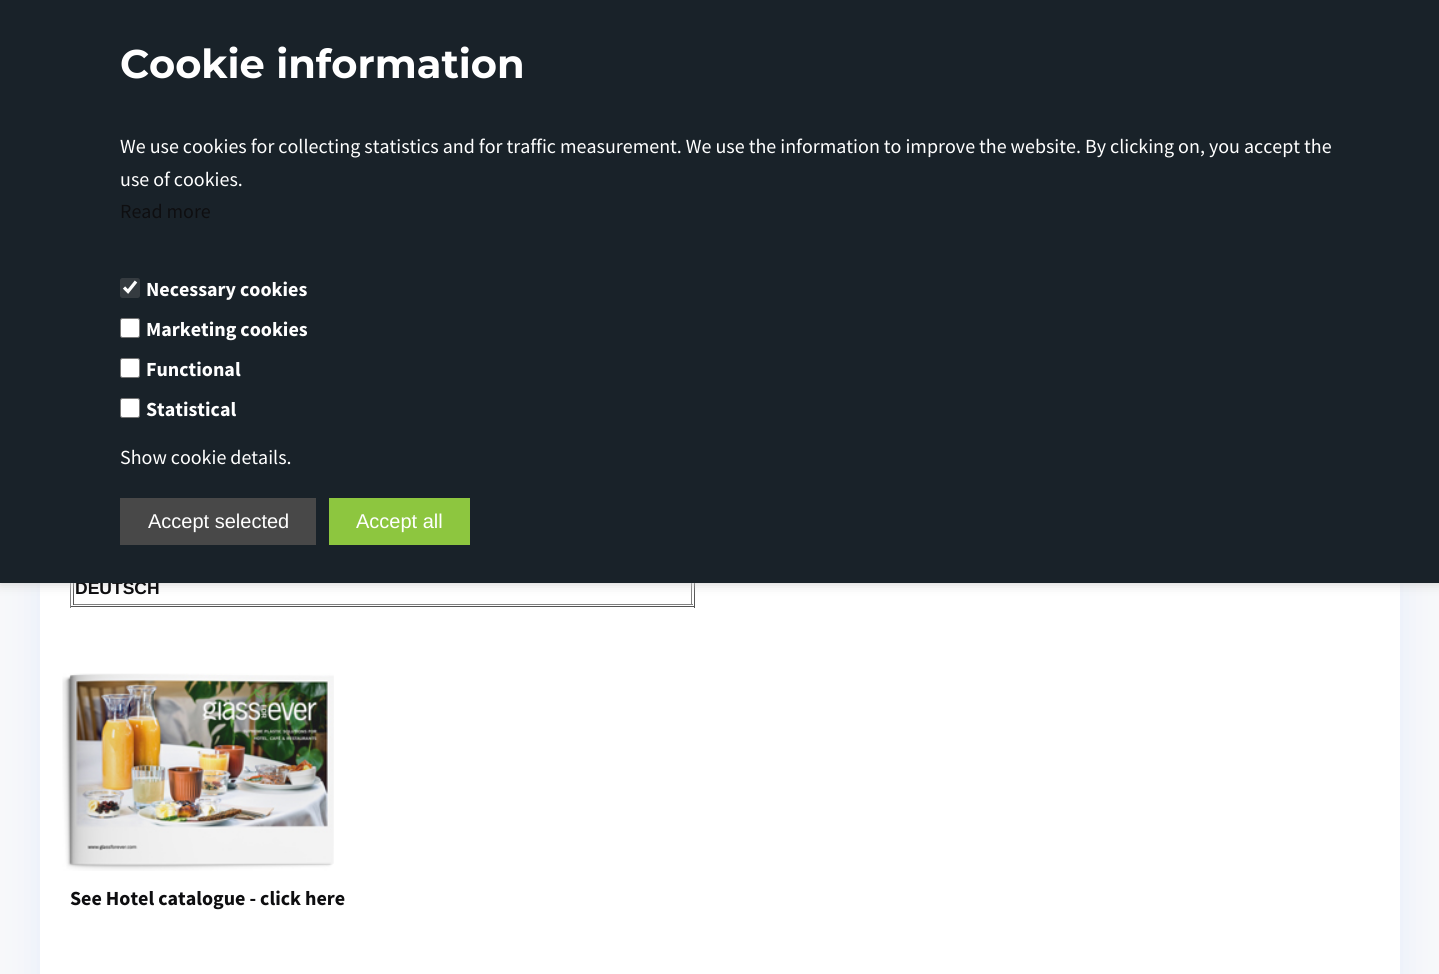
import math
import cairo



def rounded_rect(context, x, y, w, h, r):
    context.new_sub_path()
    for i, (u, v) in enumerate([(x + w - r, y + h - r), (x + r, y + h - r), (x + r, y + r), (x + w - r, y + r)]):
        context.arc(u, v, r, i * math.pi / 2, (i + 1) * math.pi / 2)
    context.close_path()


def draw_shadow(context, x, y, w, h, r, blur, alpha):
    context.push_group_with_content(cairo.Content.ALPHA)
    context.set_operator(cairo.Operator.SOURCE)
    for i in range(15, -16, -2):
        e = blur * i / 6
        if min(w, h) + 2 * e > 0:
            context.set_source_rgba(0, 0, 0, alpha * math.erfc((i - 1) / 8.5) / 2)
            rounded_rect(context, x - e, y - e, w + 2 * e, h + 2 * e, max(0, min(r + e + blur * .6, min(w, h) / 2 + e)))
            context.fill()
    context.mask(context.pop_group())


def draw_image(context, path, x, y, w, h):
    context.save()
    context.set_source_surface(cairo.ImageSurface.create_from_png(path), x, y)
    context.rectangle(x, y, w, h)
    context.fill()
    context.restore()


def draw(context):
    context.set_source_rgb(247 / 255, 248 / 255, 250 / 255)
    context.paint()
    context.set_source_rgb(103 / 255, 151 / 255, 1)
    draw_shadow(context, 40, 360, 1360, 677, 6, 19, 0.12)
    context.set_source_rgb(1, 1, 1)
    context.rectangle(40, 583, 1360, 391)
    context.fill()
    context.set_source_rgb(85 / 255, 85 / 255, 85 / 255)
    context.rectangle(694, 583, 1, 25)
    context.fill()
    context.rectangle(70, 606, 625, 1)
    context.fill()
    context.set_source_rgb(128 / 255, 128 / 255, 128 / 255)
    context.rectangle(70, 583, 1, 25)
    context.fill()
    context.rectangle(691, 583, 1, 22)
    context.fill()
    context.rectangle(73, 604, 620, 1)
    context.fill()
    context.set_source_rgb(85 / 255, 85 / 255, 85 / 255)
    context.rectangle(73, 583, 1, 22)
    context.fill()
    context.set_source_rgb(204 / 255, 204 / 255, 204 / 255)
    draw_shadow(context, 0, 0, 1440, 583, 0, 6, 1)
    draw_image(context, "images/1.png", 62, 673, 272, 198)
    context.select_font_face("Liberation Sans", cairo.FontSlant.NORMAL, cairo.FontWeight.BOLD)
    context.set_font_size(17.5)
    context.set_source_rgb(14 / 255, 14 / 255, 16 / 255)
    context.move_to(75, 594)
    context.show_text("DEUTSCH")
    context.set_source_rgb(25 / 255, 34 / 255, 41 / 255)
    context.rectangle(0, 0, 1439, 583)
    context.fill()
    context.set_source_rgb(1, 1, 1)
    rounded_rect(context, 120.5, 398.5, 19, 19, 2)
    context.fill_preserve()
    context.set_source_rgb(118 / 255, 118 / 255, 118 / 255)
    context.set_line_width(1)
    context.stroke()
    context.set_source_rgb(1, 1, 1)
    rounded_rect(context, 120.5, 358.5, 19, 19, 2)
    context.fill_preserve()
    context.set_source_rgb(118 / 255, 118 / 255, 118 / 255)
    context.stroke()
    context.set_source_rgb(1, 1, 1)
    rounded_rect(context, 120.5, 318.5, 19, 19, 2)
    context.fill_preserve()
    context.set_source_rgb(118 / 255, 118 / 255, 118 / 255)
    context.stroke()
    context.set_source_rgb(53 / 255, 59 / 255, 64 / 255)
    rounded_rect(context, 120, 278, 20, 20, 2.5)
    context.fill()
    context.new_path()
    context.move_to(124, 287.5)
    context.line_to(128, 291.5)
    context.line_to(136, 281.5)
    context.set_source_rgb(1, 1, 1)
    context.set_line_width(3.2)
    context.stroke()
    context.set_source_rgb(141 / 255, 198 / 255, 63 / 255)
    context.rectangle(329, 498, 141, 47)
    context.fill()
    context.select_font_face("Liberation Sans")
    context.set_font_size(20)
    context.set_source_rgb(1, 1, 1)
    context.move_to(356, 528)
    context.show_text("Accept all")
    context.set_source_rgb(72 / 255, 72 / 255, 72 / 255)
    context.rectangle(120, 498, 196, 47)
    context.fill()
    context.set_source_rgb(1, 1, 1)
    context.move_to(148, 528)
    context.show_text("Accept selected")
    context.select_font_face("Source Sans Pro")
    context.move_to(120, 464)
    context.show_text("Show cookie details.")
    context.select_font_face("Source Sans Pro", cairo.FontSlant.NORMAL, cairo.FontWeight.BOLD)
    context.move_to(146, 416)
    context.show_text("Statistical")
    context.move_to(146, 376)
    context.show_text("Functional")
    context.move_to(146, 336)
    context.show_text("Marketing cookies")
    context.move_to(146, 296)
    context.show_text("Necessary cookies")
    context.select_font_face("Source Sans Pro")
    context.set_source_rgb(14 / 255, 14 / 255, 16 / 255)
    context.move_to(120, 218)
    context.show_text("Read more")
    context.set_source_rgb(1, 1, 1)
    context.move_to(120, 186)
    context.show_text("use of cookies.")
    context.move_to(120, 153)
    context.show_text("We use cookies for collecting statistics and for traffic measurement. We use the information to improve the website. By clicking on, you accept the")
    context.select_font_face("Montserrat", cairo.FontSlant.NORMAL, cairo.FontWeight.BOLD)
    context.set_font_size(40)
    context.move_to(120, 78)
    context.show_text("Cookie information")
    context.select_font_face("Source Sans Pro", cairo.FontSlant.NORMAL, cairo.FontWeight.BOLD)
    context.set_font_size(20)
    context.set_source_rgb(14 / 255, 14 / 255, 16 / 255)
    context.move_to(70, 905)
    context.show_text("See Hotel catalogue - click here")


surface = cairo.ImageSurface(cairo.Format.RGB24, 1439, 974)
context = cairo.Context(surface)
options = cairo.FontOptions()
options.set_hint_metrics(cairo.HintMetrics.OFF)
options.set_hint_style(cairo.HintStyle.NONE)
context.set_font_options(options)
context.set_miter_limit(4)
draw(context)
surface.write_to_png("out.png")
